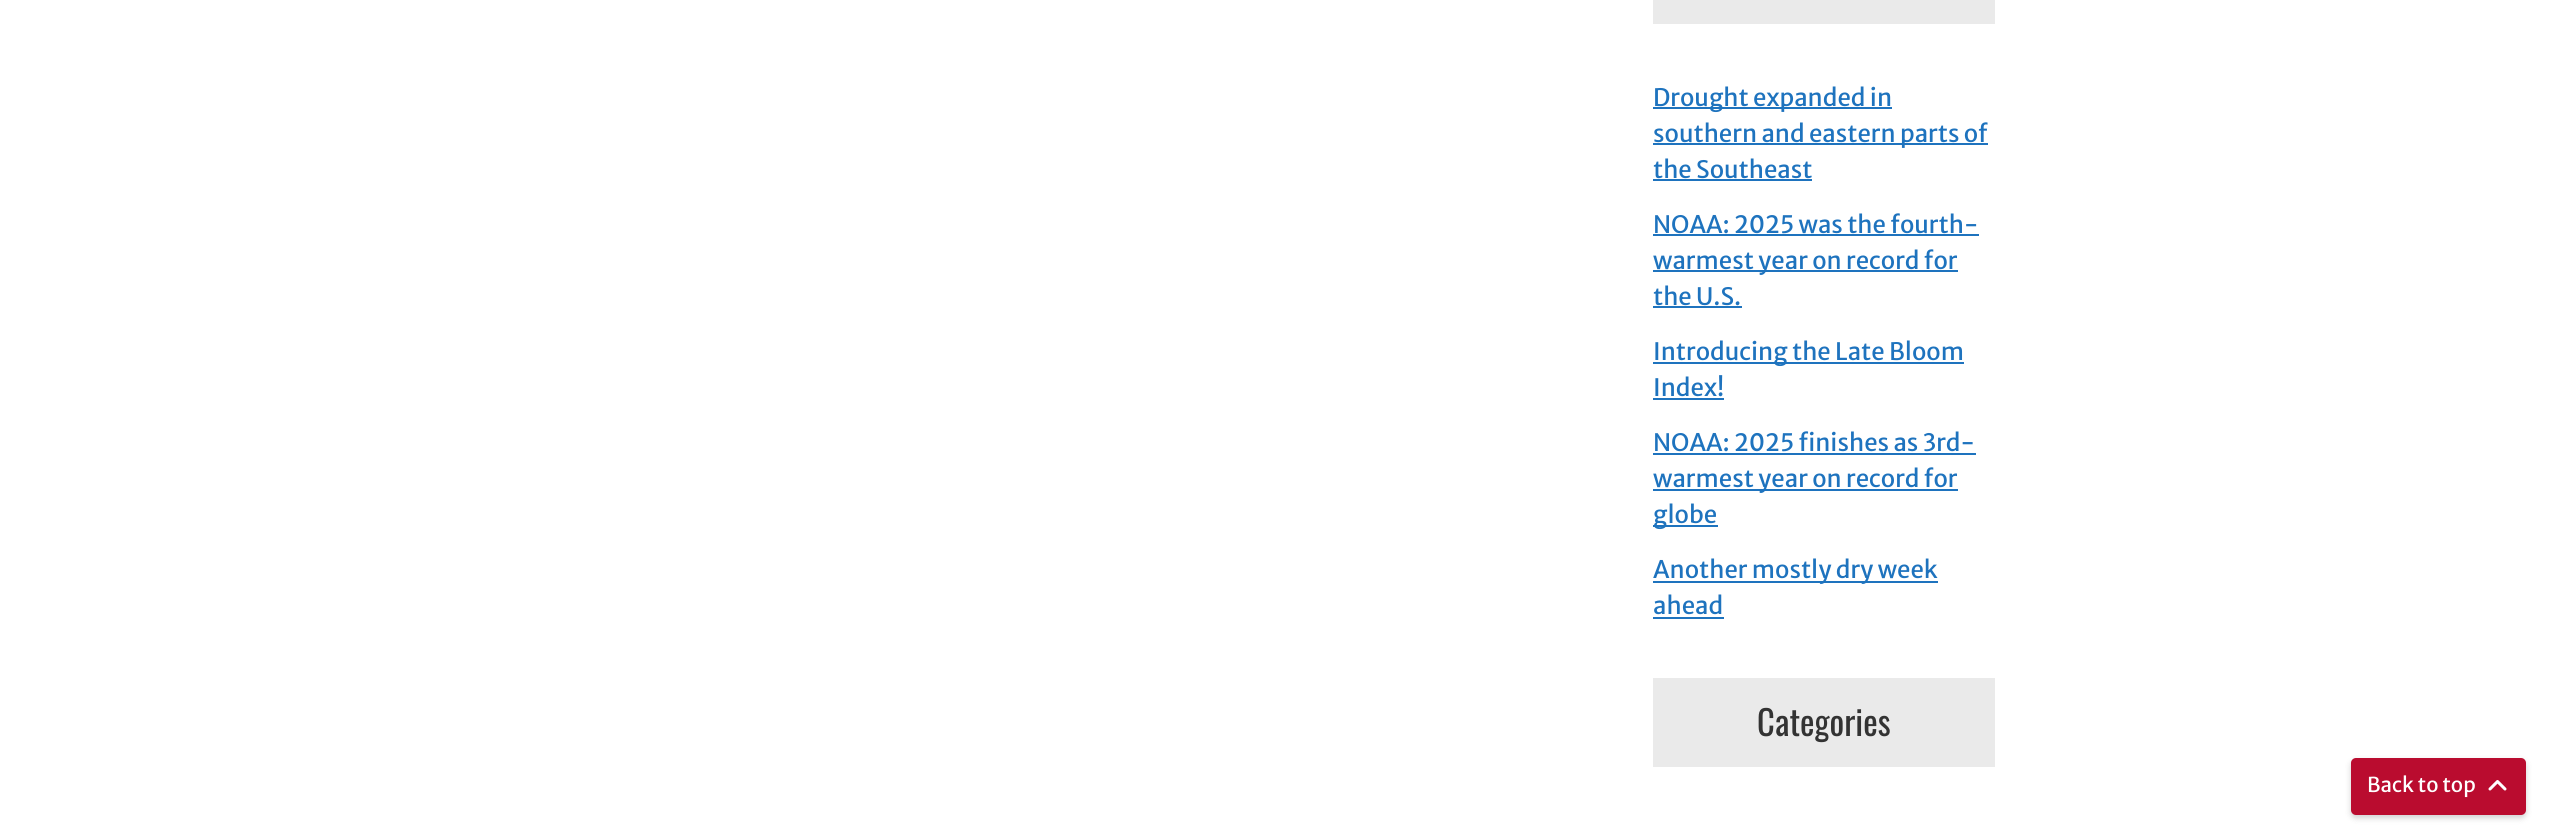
import math
import cairo



def rounded_rect(context, x, y, w, h, r):
    context.new_sub_path()
    for i, (u, v) in enumerate([(x + w - r, y + h - r), (x + r, y + h - r), (x + r, y + r), (x + w - r, y + r)]):
        context.arc(u, v, r, i * math.pi / 2, (i + 1) * math.pi / 2)
    context.close_path()


def draw_shadow(context, x, y, w, h, r, blur, alpha):
    context.push_group_with_content(cairo.Content.ALPHA)
    context.set_operator(cairo.Operator.SOURCE)
    for i in range(15, -16, -2):
        e = blur * i / 6
        if min(w, h) + 2 * e > 0:
            context.set_source_rgba(0, 0, 0, alpha * math.erfc((i - 1) / 8.5) / 2)
            rounded_rect(context, x - e, y - e, w + 2 * e, h + 2 * e, max(0, min(r + e + blur * .6, min(w, h) / 2 + e)))
            context.fill()
    context.mask(context.pop_group())


def draw_image(context, path, x, y, w, h):
    context.save()
    context.set_source_surface(cairo.ImageSurface.create_from_png(path), x, y)
    context.rectangle(x, y, w, h)
    context.fill()
    context.restore()


def draw(context):
    context.set_source_rgb(1, 1, 1)
    context.paint()
    context.set_source_rgb(234 / 255, 234 / 255, 234 / 255)
    context.rectangle(1653, 0, 342, 24)
    context.fill()
    context.set_source_rgb(30 / 255, 115 / 255, 190 / 255)
    context.rectangle(1653, 107, 239, 2)
    context.fill()
    context.rectangle(1653, 143, 335, 2)
    context.fill()
    context.rectangle(1653, 179, 159, 2)
    context.fill()
    context.rectangle(1653, 234, 326, 2)
    context.fill()
    context.rectangle(1653, 270, 305, 2)
    context.fill()
    context.rectangle(1653, 306, 89, 2)
    context.fill()
    context.rectangle(1653, 362, 311, 2)
    context.fill()
    context.rectangle(1653, 398, 71, 2)
    context.fill()
    context.rectangle(1653, 453, 323, 2)
    context.fill()
    context.rectangle(1653, 489, 305, 2)
    context.fill()
    context.rectangle(1653, 525, 65, 2)
    context.fill()
    context.rectangle(1653, 581, 285, 2)
    context.fill()
    context.rectangle(1653, 617, 71, 2)
    context.fill()
    context.set_source_rgb(234 / 255, 234 / 255, 234 / 255)
    context.rectangle(1653, 678, 342, 89)
    context.fill()
    context.set_source_rgb(0, 0, 0)
    draw_shadow(context, 2351, 761, 175, 57, 5, 3, 0.18)
    context.set_source_rgb(186 / 255, 12 / 255, 47 / 255)
    rounded_rect(context, 2351, 758, 175, 57, 5)
    context.fill()
    draw_image(context, "images/1.png", 2488, 780, 19, 11)
    context.select_font_face("Merriweather Sans")
    context.set_font_size(24)
    context.set_source_rgb(30 / 255, 115 / 255, 190 / 255)
    context.move_to(1653, 106)
    context.show_text("Drought expanded in")
    context.move_to(1653, 142)
    context.show_text("southern and eastern parts of")
    context.move_to(1653, 178)
    context.show_text("the Southeast")
    context.move_to(1653, 233)
    context.show_text("NOAA: 2025 was the fourth-")
    context.move_to(1653, 269)
    context.show_text("warmest year on record for")
    context.move_to(1653, 305)
    context.show_text("the U.S.")
    context.move_to(1653, 360)
    context.show_text("Introducing the Late Bloom")
    context.move_to(1653, 396)
    context.show_text("Index!")
    context.move_to(1653, 451)
    context.show_text("NOAA: 2025 finishes as 3rd-")
    context.move_to(1653, 487)
    context.show_text("warmest year on record for")
    context.move_to(1653, 523)
    context.show_text("globe")
    context.move_to(1653, 578)
    context.show_text("Another mostly dry week")
    context.move_to(1653, 614)
    context.show_text("ahead")
    context.select_font_face("Oswald")
    context.set_font_size(34.5)
    context.set_source_rgb(51 / 255, 51 / 255, 51 / 255)
    context.move_to(1757, 736)
    context.show_text("Categories")
    context.select_font_face("Merriweather Sans")
    context.set_font_size(20.5)
    context.set_source_rgb(1, 1, 1)
    context.move_to(2367, 792)
    context.show_text("Back to top")


surface = cairo.ImageSurface(cairo.Format.RGB24, 2549, 838)
context = cairo.Context(surface)
options = cairo.FontOptions()
options.set_hint_metrics(cairo.HintMetrics.OFF)
options.set_hint_style(cairo.HintStyle.NONE)
context.set_font_options(options)
context.set_miter_limit(4)
draw(context)
surface.write_to_png("out.png")
